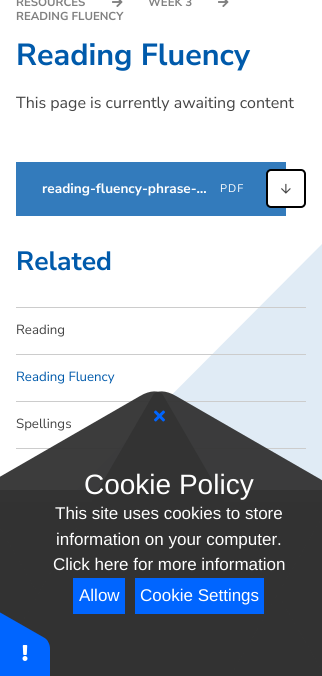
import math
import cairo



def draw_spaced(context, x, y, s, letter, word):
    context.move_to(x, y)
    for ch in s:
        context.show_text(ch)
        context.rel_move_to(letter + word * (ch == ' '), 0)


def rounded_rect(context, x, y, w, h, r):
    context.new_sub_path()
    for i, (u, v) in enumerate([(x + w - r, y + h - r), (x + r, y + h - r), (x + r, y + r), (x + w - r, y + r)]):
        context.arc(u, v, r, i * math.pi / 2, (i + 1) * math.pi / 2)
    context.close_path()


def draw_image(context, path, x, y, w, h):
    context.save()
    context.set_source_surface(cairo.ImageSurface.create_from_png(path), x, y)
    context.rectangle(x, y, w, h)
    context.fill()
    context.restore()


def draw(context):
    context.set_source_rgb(1, 1, 1)
    context.paint()
    draw_image(context, "images/1.png", 112, 0, 11, 7)
    draw_image(context, "images/1.png", 218, 0, 11, 7)
    context.set_source_rgb(51 / 255, 123 / 255, 188 / 255)
    context.rectangle(16, 162, 270, 54)
    context.fill()
    context.set_source_rgb(1, 1, 1)
    rounded_rect(context, 267, 170, 38, 37, 4)
    context.fill_preserve()
    context.set_source_rgb(0, 0, 0)
    context.stroke()
    draw_image(context, "images/2.png", 281, 183, 10, 11)
    context.set_source_rgb(224 / 255, 235 / 255, 245 / 255)
    context.new_path()
    context.move_to(322, 244)
    context.line_to(322, 502)
    context.line_to(65, 502)
    context.close_path()
    context.fill()
    context.set_source_rgb(204 / 255, 204 / 255, 204 / 255)
    context.rectangle(16, 307, 290, 1)
    context.fill()
    context.rectangle(16, 354, 290, 1)
    context.fill()
    context.rectangle(16, 401, 290, 1)
    context.fill()
    context.rectangle(16, 448, 290, 1)
    context.fill()
    context.set_source_rgb(33 / 255, 33 / 255, 33 / 255)
    context.rectangle(0, 502, 322, 174)
    context.fill()
    context.set_source_rgba(51 / 255, 51 / 255, 51 / 255, 0.95)
    context.new_path()
    context.move_to(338, 510)
    context.line_to(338, 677)
    context.curve_to(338, 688, 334, 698, 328, 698)
    context.line_to(-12, 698)
    context.curve_to(-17, 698, -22, 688, -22, 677)
    context.line_to(-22, 510)
    context.curve_to(-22, 499, -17, 490, -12, 490)
    context.line_to(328, 490)
    context.curve_to(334, 490, 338, 499, 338, 510)
    context.close_path()
    context.fill()
    context.select_font_face("Nunito Sans", cairo.FontSlant.NORMAL, cairo.FontWeight.BOLD)
    context.set_font_size(11.5)
    context.set_source_rgb(128 / 255, 128 / 255, 128 / 255)
    context.move_to(16, 6)
    context.show_text("RESOURCES")
    context.move_to(148, 6)
    context.show_text("WEEK 3")
    context.move_to(16, 20)
    context.show_text("READING FLUENCY")
    context.set_font_size(30.5)
    context.set_source_rgb(0, 90 / 255, 171 / 255)
    context.move_to(16, 65)
    context.show_text("Reading Fluency")
    context.select_font_face("Nunito Sans")
    context.set_font_size(16)
    context.set_source_rgb(68 / 255, 68 / 255, 68 / 255)
    context.move_to(16, 108)
    context.show_text("This page is currently awaiting content")
    context.select_font_face("Nunito Sans", cairo.FontSlant.NORMAL, cairo.FontWeight.BOLD)
    context.set_font_size(13.6)
    context.set_source_rgb(1, 1, 1)
    context.move_to(42, 193)
    context.show_text("reading-fluency-phrase-…")
    context.select_font_face("Nunito Sans")
    context.set_font_size(11)
    draw_spaced(context, 220, 192, "PDF", 1, 0)
    context.select_font_face("Nunito Sans", cairo.FontSlant.NORMAL, cairo.FontWeight.BOLD)
    context.set_font_size(26.5)
    context.set_source_rgb(0, 90 / 255, 171 / 255)
    context.move_to(16, 270)
    context.show_text("Related")
    context.select_font_face("Nunito Sans")
    context.set_font_size(13.25)
    context.set_source_rgb(68 / 255, 68 / 255, 68 / 255)
    context.move_to(16, 334)
    context.show_text("Reading")
    context.set_source_rgb(0, 90 / 255, 171 / 255)
    context.move_to(16, 381)
    context.show_text("Reading Fluency")
    context.set_source_rgb(68 / 255, 68 / 255, 68 / 255)
    context.move_to(16, 428)
    context.show_text("Spellings")
    context.set_source_rgba(51 / 255, 51 / 255, 51 / 255, 0.95)
    context.new_path()
    context.move_to(320, 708)
    context.line_to(176, 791)
    context.curve_to(166, 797, 156, 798, 153, 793)
    context.line_to(-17, 499)
    context.curve_to(-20, 494, -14, 485, -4, 479)
    context.line_to(140, 396)
    context.curve_to(150, 390, 160, 390, 163, 395)
    context.line_to(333, 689)
    context.curve_to(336, 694, 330, 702, 320, 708)
    context.close_path()
    context.fill()
    context.new_path()
    context.move_to(176, 396)
    context.line_to(320, 479)
    context.curve_to(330, 485, 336, 494, 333, 499)
    context.line_to(163, 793)
    context.curve_to(160, 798, 150, 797, 140, 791)
    context.line_to(-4, 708)
    context.curve_to(-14, 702, -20, 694, -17, 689)
    context.line_to(153, 395)
    context.curve_to(156, 390, 166, 390, 176, 396)
    context.close_path()
    context.fill()
    draw_image(context, "images/3.png", 154, 410, 11, 12)
    context.select_font_face("Liberation Sans")
    context.set_font_size(28)
    context.set_source_rgb(1, 1, 1)
    context.move_to(84, 494)
    context.show_text("Cookie Policy")
    context.set_font_size(17)
    context.move_to(55, 519)
    context.show_text("This site uses cookies to store")
    context.move_to(56, 545)
    context.show_text("information on your computer.")
    context.move_to(53, 570)
    context.show_text("Click here for more information")
    context.set_source_rgb(0, 101 / 255, 1)
    context.rectangle(73, 578, 52, 36)
    context.fill()
    context.set_source_rgb(1, 1, 1)
    context.move_to(79, 601)
    context.show_text("Allow")
    context.set_source_rgb(0, 101 / 255, 1)
    context.rectangle(135, 578, 129, 36)
    context.fill()
    context.set_source_rgb(1, 1, 1)
    context.move_to(140, 601)
    context.show_text("Cookie Settings")
    context.set_source_rgb(0, 101 / 255, 1)
    context.new_path()
    context.move_to(50, 649)
    context.line_to(50, 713)
    context.curve_to(50, 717, 48, 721, 46, 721)
    context.line_to(-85, 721)
    context.curve_to(-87, 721, -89, 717, -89, 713)
    context.line_to(-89, 649)
    context.curve_to(-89, 644, -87, 641, -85, 641)
    context.line_to(46, 641)
    context.curve_to(48, 641, 50, 644, 50, 649)
    context.close_path()
    context.fill()
    context.new_path()
    context.move_to(-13, 605)
    context.line_to(43, 637)
    context.curve_to(47, 639, 49, 642, 48, 644)
    context.line_to(-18, 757)
    context.curve_to(-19, 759, -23, 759, -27, 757)
    context.line_to(-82, 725)
    context.curve_to(-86, 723, -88, 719, -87, 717)
    context.line_to(-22, 604)
    context.curve_to(-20, 602, -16, 603, -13, 605)
    context.close_path()
    context.fill()
    draw_image(context, "images/4.png", 22, 645, 6, 16)


surface = cairo.ImageSurface(cairo.Format.RGB24, 322, 676)
context = cairo.Context(surface)
options = cairo.FontOptions()
options.set_hint_metrics(cairo.HintMetrics.OFF)
options.set_hint_style(cairo.HintStyle.NONE)
context.set_font_options(options)
context.set_miter_limit(4)
draw(context)
surface.write_to_png("out.png")
